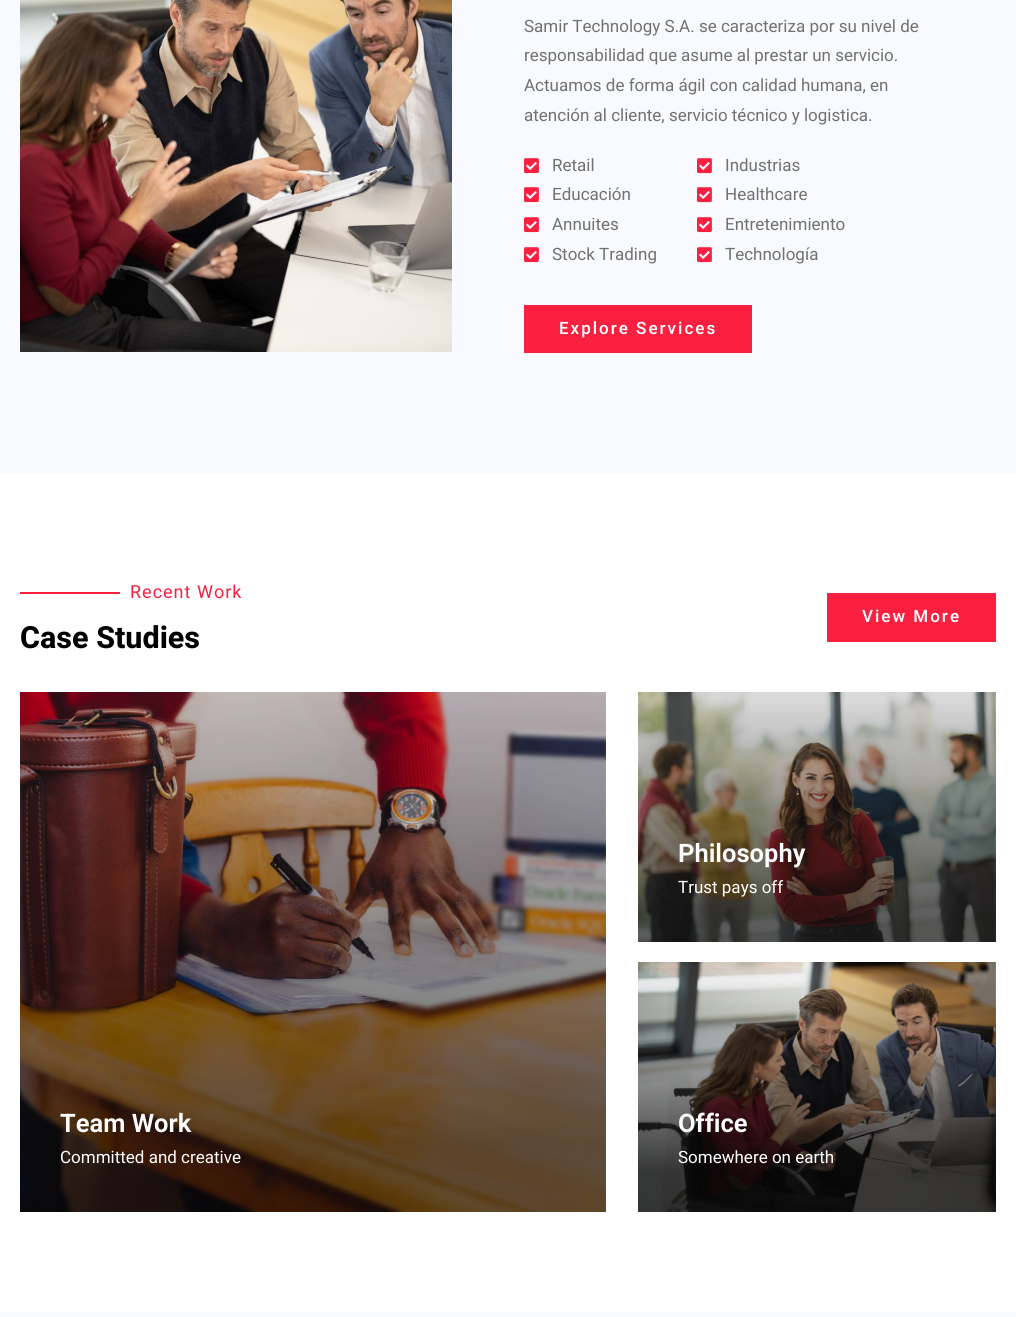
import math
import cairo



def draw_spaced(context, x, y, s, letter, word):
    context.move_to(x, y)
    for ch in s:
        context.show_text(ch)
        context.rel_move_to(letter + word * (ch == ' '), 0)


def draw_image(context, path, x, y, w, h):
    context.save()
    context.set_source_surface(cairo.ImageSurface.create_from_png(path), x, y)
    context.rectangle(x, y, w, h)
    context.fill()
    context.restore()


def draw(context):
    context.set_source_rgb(1, 1, 1)
    context.paint()
    context.set_source_rgb(249 / 255, 250 / 255, 1)
    context.rectangle(0, 0, 1016, 473)
    context.fill()
    draw_image(context, "images/1.png", 20, 0, 432, 352)
    draw_image(context, "images/2.png", 524, 158, 15, 16)
    draw_image(context, "images/2.png", 524, 187, 15, 16)
    draw_image(context, "images/2.png", 524, 217, 15, 16)
    draw_image(context, "images/2.png", 524, 247, 15, 16)
    draw_image(context, "images/2.png", 697, 158, 15, 16)
    draw_image(context, "images/2.png", 697, 187, 15, 16)
    draw_image(context, "images/2.png", 697, 217, 15, 16)
    draw_image(context, "images/2.png", 697, 247, 15, 16)
    context.set_source_rgb(251 / 255, 31 / 255, 64 / 255)
    context.rectangle(524, 305, 228, 48)
    context.fill()
    context.rectangle(20, 592, 100, 2)
    context.fill()
    context.rectangle(827, 593, 169, 49)
    context.fill()
    draw_image(context, "images/3.png", 20, 692, 586, 520)
    gradient = cairo.LinearGradient(313, 692, 313, 1212)
    gradient.add_color_stop_rgba(0, 0, 0, 0, 0.11)
    gradient.add_color_stop_rgba(0.87, 0, 0, 0, 0.6)
    context.set_source(gradient)
    context.rectangle(20, 692, 586, 520)
    context.fill()
    draw_image(context, "images/4.png", 638, 692, 358, 250)
    gradient = cairo.LinearGradient(817, 692, 817, 942)
    gradient.add_color_stop_rgba(0.03, 0, 0, 0, 0.09)
    gradient.add_color_stop_rgba(0.91, 9 / 255, 9 / 255, 9 / 255, 0.64)
    context.set_source(gradient)
    context.rectangle(638, 692, 358, 250)
    context.fill()
    draw_image(context, "images/5.png", 638, 962, 358, 250)
    gradient = cairo.LinearGradient(817, 962, 817, 1212)
    gradient.add_color_stop_rgba(0, 8 / 255, 8 / 255, 8 / 255, 0)
    gradient.add_color_stop_rgba(0.84, 8 / 255, 8 / 255, 8 / 255, 0.8)
    context.set_source(gradient)
    context.rectangle(638, 968, 358, 244)
    context.fill()
    context.set_source_rgb(249 / 255, 250 / 255, 1)
    context.rectangle(0, 1312, 1016, 5)
    context.fill()
    context.select_font_face("Heebo")
    context.set_font_size(17)
    context.set_source_rgb(113 / 255, 113 / 255, 113 / 255)
    context.move_to(524, 32)
    context.show_text("Samir Technology S.A. se caracteriza por su nivel de")
    context.move_to(524, 61)
    context.show_text("responsabilidad que asume al prestar un servicio.")
    context.move_to(524, 91)
    context.show_text("Actuamos de forma ágil con calidad humana, en")
    context.move_to(524, 121)
    context.show_text("atención al cliente, servicio técnico y logistica.")
    context.move_to(552, 171)
    context.show_text("Retail")
    context.move_to(552, 200)
    context.show_text("Educación")
    context.move_to(552, 230)
    context.show_text("Annuites")
    context.move_to(552, 260)
    context.show_text("Stock Trading")
    context.move_to(725, 171)
    context.show_text("Industrias")
    context.move_to(725, 200)
    context.show_text("Healthcare")
    context.move_to(725, 230)
    context.show_text("Entretenimiento")
    context.move_to(725, 260)
    context.show_text("Technología")
    context.select_font_face("Heebo Medium")
    context.set_source_rgb(1, 1, 1)
    draw_spaced(context, 559, 334, "Explore Services", 2, 0)
    context.select_font_face("Heebo")
    context.set_font_size(18)
    context.set_source_rgb(251 / 255, 31 / 255, 64 / 255)
    draw_spaced(context, 130, 598, "Recent Work", 1, 0)
    context.select_font_face("Heebo", cairo.FontSlant.NORMAL, cairo.FontWeight.BOLD)
    context.set_font_size(30.5)
    context.set_source_rgb(0, 0, 0)
    context.move_to(20, 648)
    context.show_text("Case Studies")
    context.select_font_face("Heebo Medium")
    context.set_font_size(17)
    context.set_source_rgb(1, 1, 1)
    draw_spaced(context, 862, 622, "View More", 2, 0)
    context.select_font_face("Heebo SemiBold")
    context.set_font_size(25.5)
    context.move_to(60, 1132)
    context.show_text("Team Work")
    context.select_font_face("Heebo")
    context.set_font_size(17)
    context.move_to(60, 1163)
    context.show_text("Committed and creative")
    context.select_font_face("Heebo SemiBold")
    context.set_font_size(25.5)
    context.move_to(678, 862)
    context.show_text("Philosophy")
    context.select_font_face("Heebo")
    context.set_font_size(17)
    context.move_to(678, 893)
    context.show_text("Trust pays off")
    context.select_font_face("Heebo SemiBold")
    context.set_font_size(25.5)
    context.move_to(678, 1132)
    context.show_text("Office")
    context.select_font_face("Heebo")
    context.set_font_size(17)
    context.move_to(678, 1163)
    context.show_text("Somewhere on earth")


surface = cairo.ImageSurface(cairo.Format.RGB24, 1016, 1317)
context = cairo.Context(surface)
options = cairo.FontOptions()
options.set_hint_metrics(cairo.HintMetrics.OFF)
options.set_hint_style(cairo.HintStyle.NONE)
context.set_font_options(options)
context.set_miter_limit(4)
draw(context)
surface.write_to_png("out.png")
